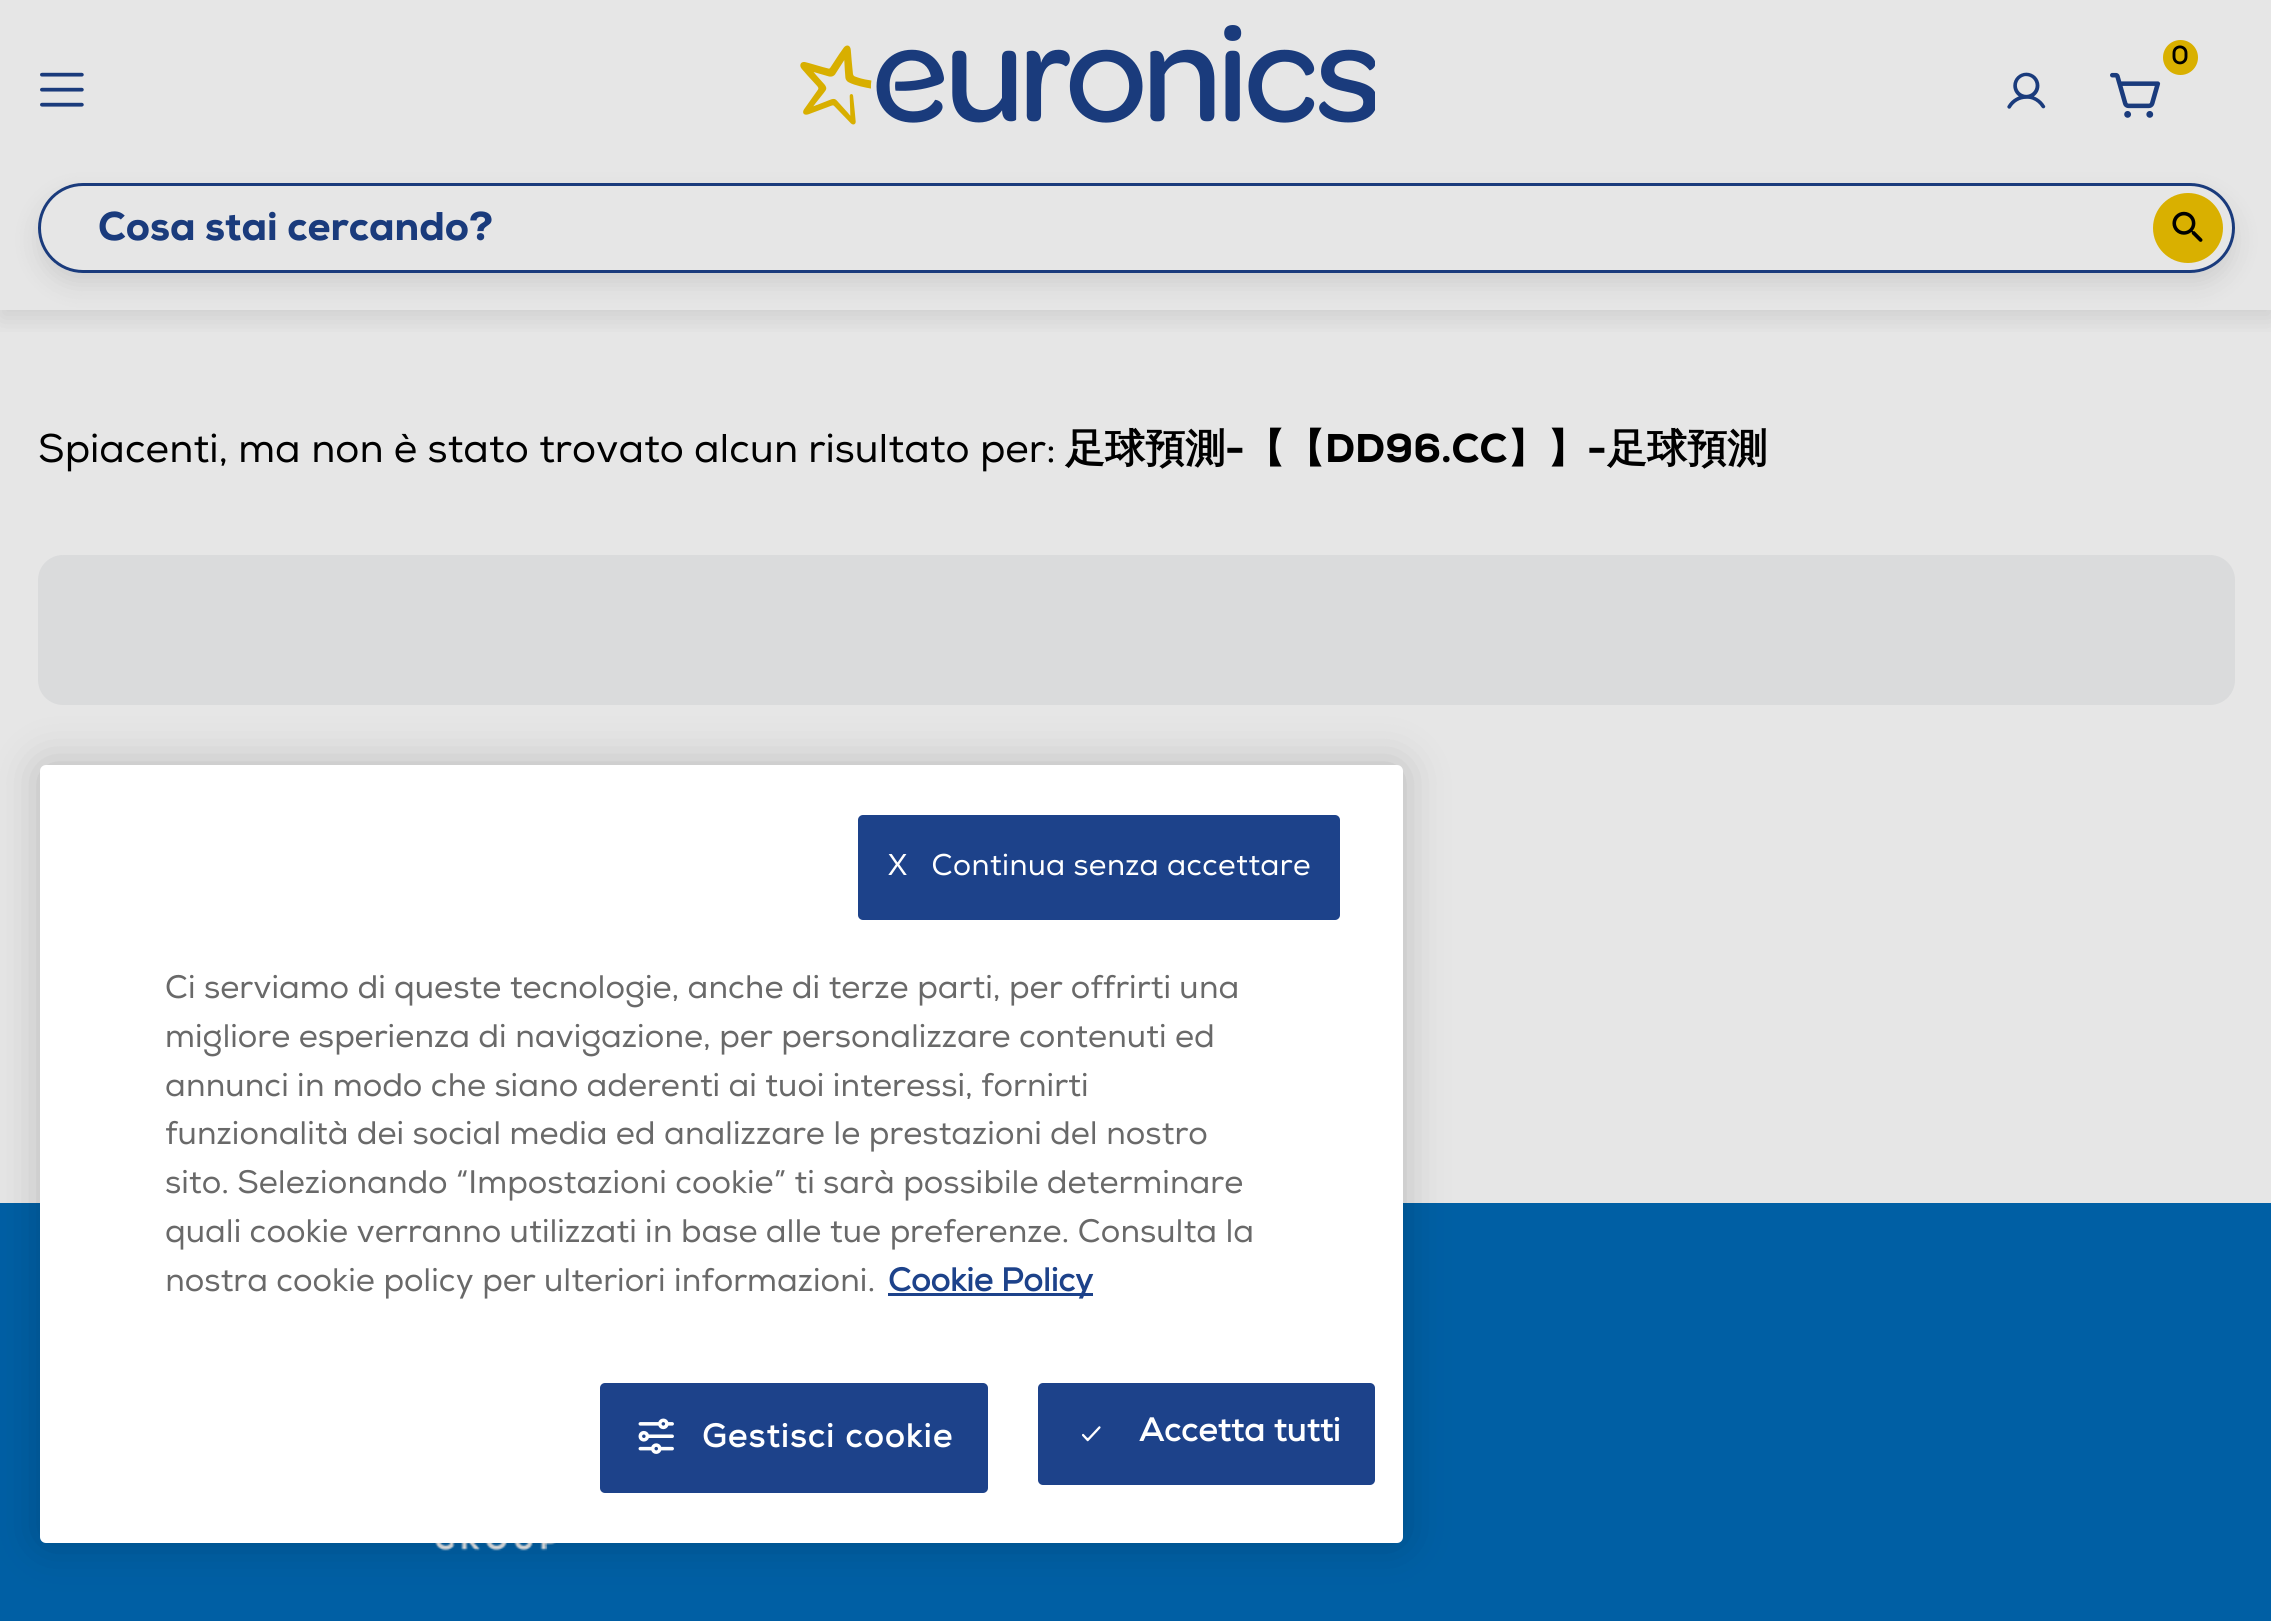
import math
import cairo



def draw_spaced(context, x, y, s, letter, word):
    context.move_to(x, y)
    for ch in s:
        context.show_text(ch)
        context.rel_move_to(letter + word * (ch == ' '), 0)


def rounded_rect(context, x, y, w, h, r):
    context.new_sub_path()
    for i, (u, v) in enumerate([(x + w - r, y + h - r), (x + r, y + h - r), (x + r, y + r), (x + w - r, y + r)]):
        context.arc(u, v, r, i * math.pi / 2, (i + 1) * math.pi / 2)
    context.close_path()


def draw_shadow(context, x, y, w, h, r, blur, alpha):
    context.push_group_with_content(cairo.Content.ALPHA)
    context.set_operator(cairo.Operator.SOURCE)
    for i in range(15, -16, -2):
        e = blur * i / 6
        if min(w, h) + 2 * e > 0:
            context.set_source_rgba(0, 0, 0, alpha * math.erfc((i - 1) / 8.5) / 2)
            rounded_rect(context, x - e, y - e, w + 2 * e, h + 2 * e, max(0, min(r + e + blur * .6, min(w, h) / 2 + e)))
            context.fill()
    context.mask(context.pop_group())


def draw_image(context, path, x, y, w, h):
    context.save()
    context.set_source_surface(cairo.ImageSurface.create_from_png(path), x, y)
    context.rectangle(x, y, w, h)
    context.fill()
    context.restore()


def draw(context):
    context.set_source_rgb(230 / 255, 230 / 255, 230 / 255)
    context.paint()
    context.save()
    context.rectangle(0, 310, 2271, 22)
    context.clip()
    context.set_source_rgb(77 / 255, 78 / 255, 79 / 255)
    draw_shadow(context, 0, 8, 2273, 310, 0, 12.5, 0.16)
    context.restore()
    draw_image(context, "images/1.png", 800, 25, 575, 100)
    context.set_source_rgb(217 / 255, 176 / 255, 0)
    context.arc(2180.5, 57.5, 17.5, 0, 2 * math.pi)
    context.fill()
    draw_image(context, "images/2.png", 2110, 72, 51, 46)
    draw_image(context, "images/3.png", 2007, 72, 39, 37)
    draw_image(context, "images/4.png", 40, 72, 44, 35)
    context.save()
    context.set_fill_rule(cairo.FillRule.EVEN_ODD)
    context.new_path()
    context.move_to(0, 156)
    context.line_to(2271, 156)
    context.line_to(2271, 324)
    context.line_to(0, 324)
    context.close_path()
    context.move_to(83, 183)
    context.line_to(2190, 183)
    context.curve_to(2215, 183, 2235, 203, 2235, 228)
    context.curve_to(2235, 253, 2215, 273, 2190, 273)
    context.line_to(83, 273)
    context.curve_to(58, 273, 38, 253, 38, 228)
    context.curve_to(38, 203, 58, 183, 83, 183)
    context.close_path()
    context.clip()
    context.set_source_rgb(0, 0, 0)
    draw_shadow(context, 38, 195, 2197, 90, 45, 12.5, 0.1)
    context.restore()
    rounded_rect(context, 39.5, 184.5, 2194, 87, 43.5)
    context.set_source_rgb(26 / 255, 59 / 255, 124 / 255)
    context.set_line_width(3)
    context.stroke()
    context.set_source_rgb(217 / 255, 176 / 255, 0)
    context.arc(2188, 228, 35, 0, 2 * math.pi)
    context.fill()
    draw_image(context, "images/5.png", 2172, 211, 31, 31)
    context.set_source_rgb(218 / 255, 219 / 255, 220 / 255)
    rounded_rect(context, 38, 555, 2197, 150, 25)
    context.fill()
    context.set_source_rgb(0, 95 / 255, 164 / 255)
    context.rectangle(0, 1203, 2271, 418)
    context.fill()
    draw_image(context, "images/6.png", 435, 1543, 121, 8)
    context.set_source_rgb(0, 0, 0)
    draw_shadow(context, 40, 765, 1363, 778, 6, 22.5, 0.2)
    context.set_source_rgb(1, 1, 1)
    rounded_rect(context, 40, 765, 1363, 778, 6)
    context.fill()
    context.set_source_rgb(29 / 255, 66 / 255, 138 / 255)
    rounded_rect(context, 858, 815, 482, 105, 5)
    context.fill()
    context.rectangle(888, 1293, 205, 3)
    context.fill()
    rounded_rect(context, 600, 1383, 388, 110, 5)
    context.fill()
    draw_image(context, "images/7.png", 638, 1418, 36, 36)
    rounded_rect(context, 1038, 1383, 337, 102, 5)
    context.fill()
    draw_image(context, "images/8.png", 1082, 1426, 19, 16)
    context.select_font_face("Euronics", cairo.FontSlant.NORMAL, cairo.FontWeight.BOLD)
    context.set_font_size(25)
    context.set_source_rgb(0, 0, 0)
    context.move_to(2171, 64)
    context.show_text("0")
    context.select_font_face("Euronics Black")
    context.set_font_size(40)
    context.set_source_rgb(26 / 255, 59 / 255, 124 / 255)
    context.move_to(98, 240)
    context.show_text("Cosa stai cercando?")
    context.select_font_face("Euronics")
    context.set_source_rgb(0, 0, 0)
    context.move_to(38, 462)
    context.show_text("Spiacenti, ma non è stato trovato alcun risultato per:")
    context.select_font_face("WenQuanYi Zen Hei", cairo.FontSlant.NORMAL, cairo.FontWeight.BOLD)
    context.move_to(1065, 462)
    context.show_text("足球預測")
    context.select_font_face("Euronics Black")
    context.move_to(1225, 462)
    context.show_text("-")
    context.select_font_face("WenQuanYi Zen Hei", cairo.FontSlant.NORMAL, cairo.FontWeight.BOLD)
    context.move_to(1245, 462)
    context.show_text("【【")
    context.select_font_face("Euronics Black")
    context.move_to(1325, 462)
    context.show_text("DD96.CC")
    context.select_font_face("WenQuanYi Zen Hei", cairo.FontSlant.NORMAL, cairo.FontWeight.BOLD)
    context.move_to(1507, 462)
    context.show_text("】】")
    context.select_font_face("Euronics Black")
    context.move_to(1587, 462)
    context.show_text("-")
    context.select_font_face("WenQuanYi Zen Hei", cairo.FontSlant.NORMAL, cairo.FontWeight.BOLD)
    context.move_to(1607, 462)
    context.show_text("足球預測")
    context.select_font_face("Euronics")
    context.set_font_size(30)
    context.set_source_rgb(1, 1, 1)
    draw_spaced(context, 888, 875, "X   Continua senza accettare", 0.3, 0)
    context.set_font_size(32.5)
    context.set_source_rgb(105 / 255, 105 / 255, 105 / 255)
    context.move_to(165, 998)
    context.show_text("Ci serviamo di queste tecnologie, anche di terze parti, per offrirti una")
    context.move_to(165, 1047)
    context.show_text("migliore esperienza di navigazione, per personalizzare contenuti ed")
    context.move_to(165, 1096)
    context.show_text("annunci in modo che siano aderenti ai tuoi interessi, fornirti")
    context.move_to(165, 1144)
    context.show_text("funzionalità dei social media ed analizzare le prestazioni del nostro")
    context.move_to(165, 1193)
    context.show_text("sito. Selezionando “Impostazioni cookie” ti sarà possibile determinare")
    context.move_to(165, 1242)
    context.show_text("quali cookie verranno utilizzati in base alle tue preferenze. Consulta la")
    context.move_to(165, 1291)
    context.show_text("nostra cookie policy per ulteriori informazioni.")
    context.select_font_face("Euronics", cairo.FontSlant.NORMAL, cairo.FontWeight.BOLD)
    context.set_source_rgb(29 / 255, 66 / 255, 138 / 255)
    context.move_to(888, 1291)
    context.show_text("Cookie Policy")
    context.set_source_rgb(1, 1, 1)
    draw_spaced(context, 702, 1447, "Gestisci cookie", 1.6, 0)
    draw_spaced(context, 1139, 1441, "Accetta tutti", 0.3, 0)


surface = cairo.ImageSurface(cairo.Format.RGB24, 2271, 1621)
context = cairo.Context(surface)
options = cairo.FontOptions()
options.set_hint_metrics(cairo.HintMetrics.OFF)
options.set_hint_style(cairo.HintStyle.NONE)
context.set_font_options(options)
context.set_miter_limit(4)
draw(context)
surface.write_to_png("out.png")
